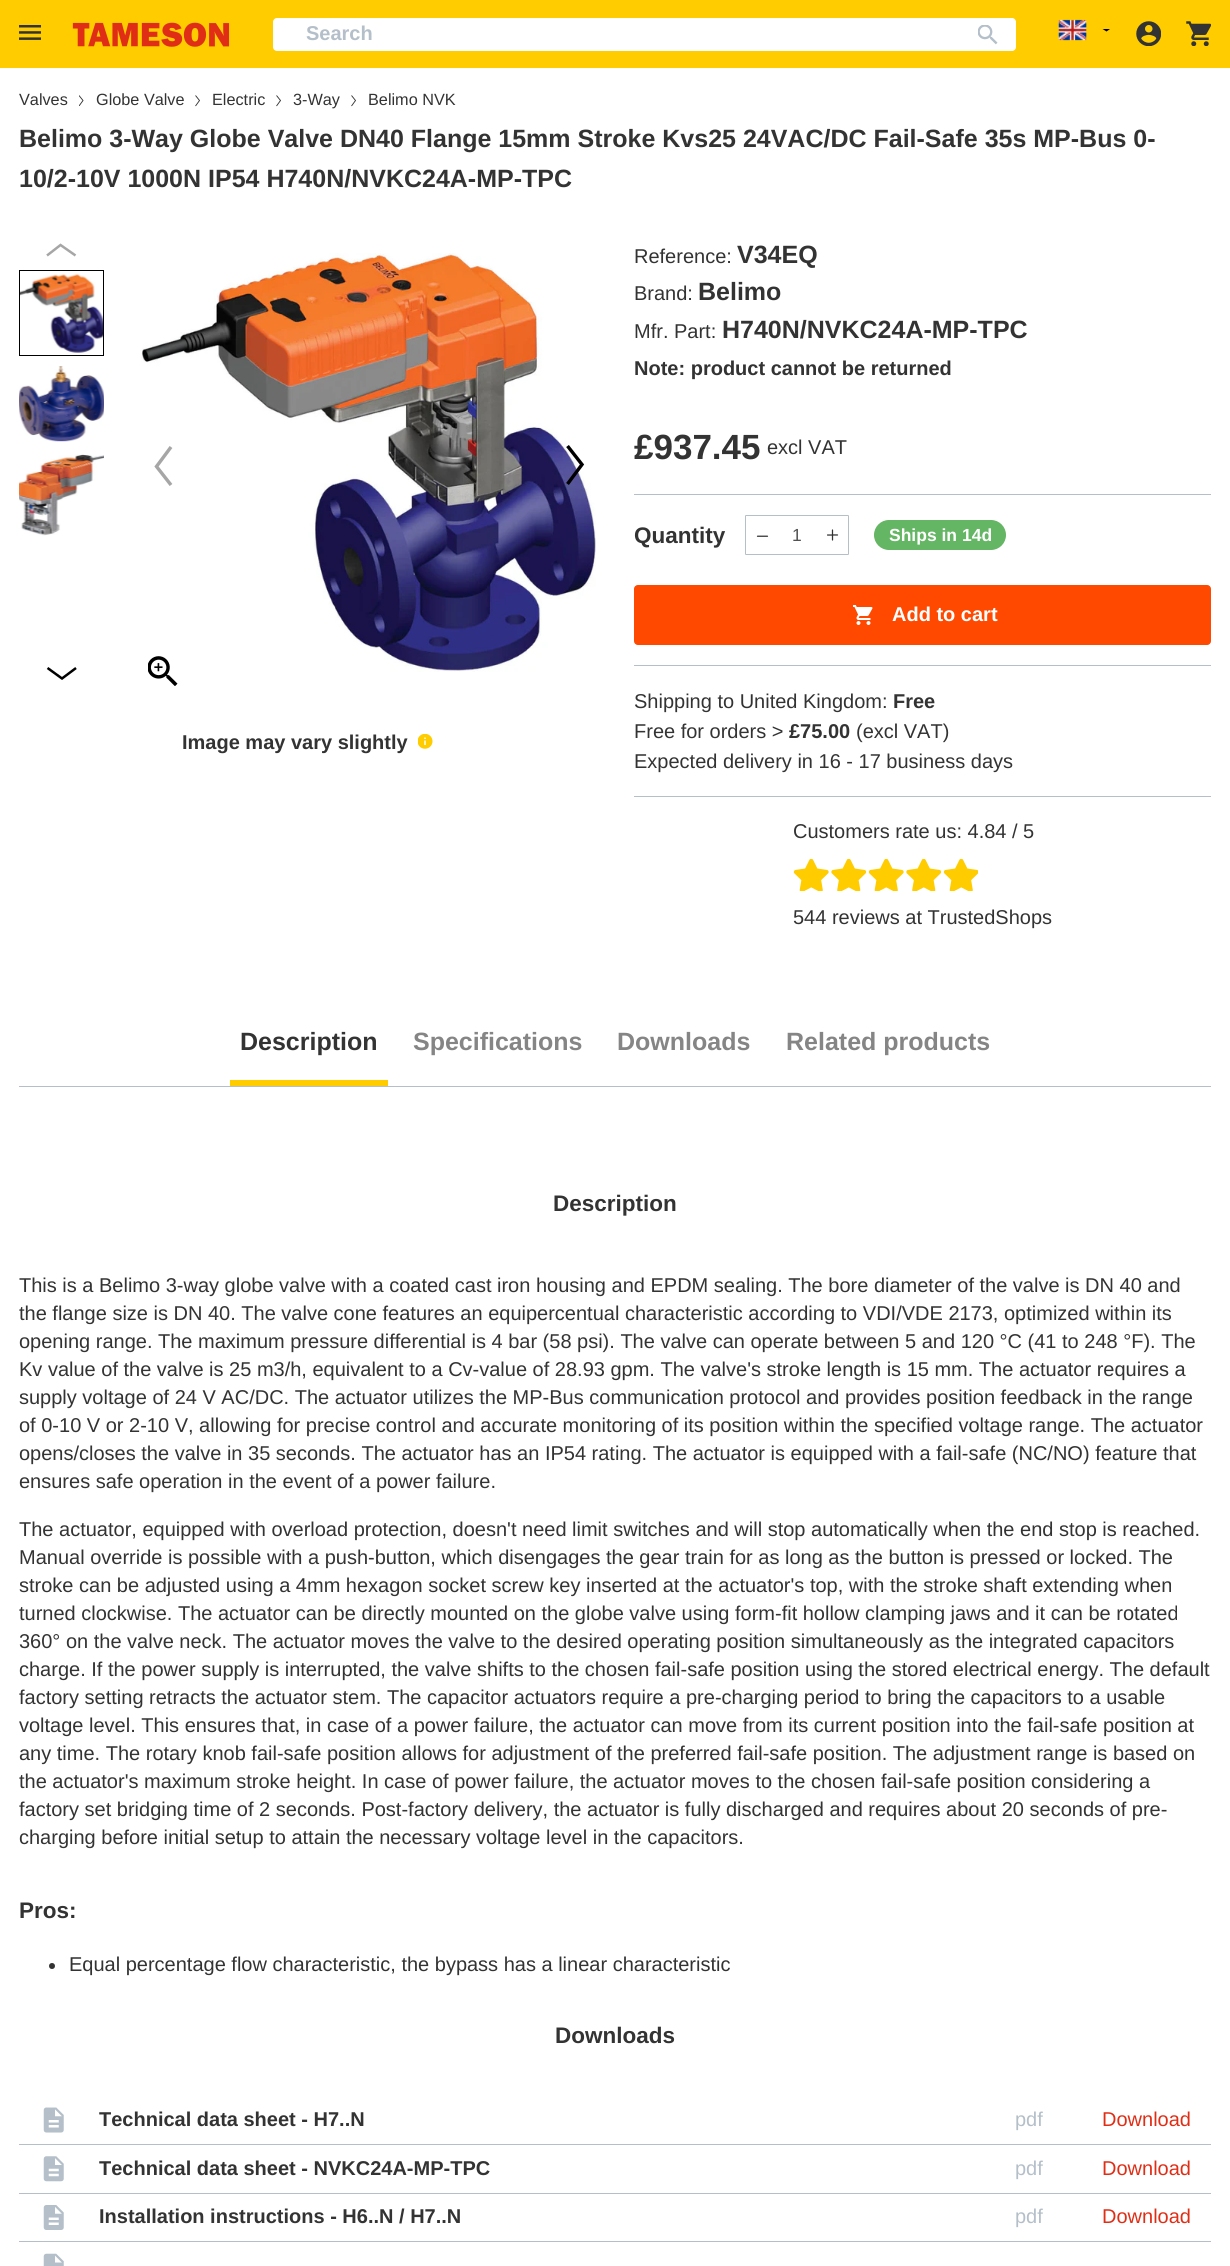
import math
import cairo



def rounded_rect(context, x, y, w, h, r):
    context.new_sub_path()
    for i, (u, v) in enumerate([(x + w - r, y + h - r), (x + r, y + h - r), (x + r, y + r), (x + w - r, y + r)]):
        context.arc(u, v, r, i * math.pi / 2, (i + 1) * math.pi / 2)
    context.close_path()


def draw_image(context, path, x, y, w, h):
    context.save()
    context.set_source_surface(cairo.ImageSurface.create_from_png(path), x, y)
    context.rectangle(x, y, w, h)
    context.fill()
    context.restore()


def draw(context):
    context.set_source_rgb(1, 1, 1)
    context.paint()
    context.set_source_rgb(1, 204 / 255, 0)
    context.rectangle(0, 0, 1230, 68)
    context.fill()
    draw_image(context, "images/1.png", 19, 25, 22, 15)
    draw_image(context, "images/2.png", 72, 22, 158, 25)
    context.set_source_rgb(1, 1, 1)
    rounded_rect(context, 273, 18, 743, 33, 4)
    context.fill()
    draw_image(context, "images/3.png", 978, 25, 20, 20)
    draw_image(context, "images/4.png", 1058, 19, 29, 22)
    context.set_source_rgb(0, 0, 0)
    context.new_path()
    context.move_to(1106.5, 31.5)
    context.line_to(1110, 29)
    context.line_to(1102.5, 29)
    context.close_path()
    context.fill()
    draw_image(context, "images/5.png", 1136, 21, 25, 25)
    draw_image(context, "images/6.png", 1186, 21, 25, 25)
    context.save()
    context.rectangle(79, 95, 5, 11)
    context.clip()
    context.new_path()
    context.move_to(79, 106)
    context.line_to(83, 100.5)
    context.line_to(79, 95.5)
    context.set_source_rgb(51 / 255, 51 / 255, 51 / 255)
    context.set_line_width(0.9)
    context.stroke()
    context.restore()
    context.new_path()
    context.move_to(195.5, 106)
    context.line_to(199.5, 100.5)
    context.line_to(195.5, 95.5)
    context.set_source_rgb(51 / 255, 51 / 255, 51 / 255)
    context.set_line_width(0.9)
    context.stroke()
    context.new_path()
    context.move_to(276.5, 106)
    context.line_to(280.5, 100.5)
    context.line_to(276.5, 95.5)
    context.stroke()
    context.new_path()
    context.move_to(351.5, 106)
    context.line_to(355.5, 100.5)
    context.line_to(351.5, 95.5)
    context.stroke()
    context.new_path()
    context.move_to(75.5, 255.5)
    context.line_to(60.5, 245)
    context.line_to(47, 255.5)
    context.set_source_rgb(166 / 255, 166 / 255, 166 / 255)
    context.set_line_width(2.5)
    context.stroke()
    draw_image(context, "images/7.png", 20, 273, 83, 80)
    context.rectangle(19.5, 270.5, 84, 85)
    context.set_source_rgb(0, 0, 0)
    context.set_line_width(1)
    context.stroke()
    draw_image(context, "images/8.png", 19, 366, 85, 76)
    draw_image(context, "images/9.png", 19, 454, 85, 82)
    context.new_path()
    context.move_to(47.5, 668)
    context.line_to(62, 678.5)
    context.line_to(76, 668)
    context.set_line_width(2.5)
    context.stroke()
    draw_image(context, "images/10.png", 141, 253, 455, 419)
    draw_image(context, "images/11.png", 148, 656, 30, 30)
    context.new_path()
    context.move_to(171, 447)
    context.line_to(156.5, 466.5)
    context.line_to(171, 485)
    context.set_source_rgb(166 / 255, 166 / 255, 166 / 255)
    context.set_line_width(3.4)
    context.stroke()
    context.new_path()
    context.move_to(567.5, 484)
    context.line_to(582, 464.5)
    context.line_to(567.5, 446)
    context.set_source_rgb(0, 0, 0)
    context.stroke()
    draw_image(context, "images/12.png", 418, 734, 15, 15)
    context.set_source_rgb(180 / 255, 191 / 255, 201 / 255)
    context.rectangle(634, 494, 577, 1)
    context.fill()
    rounded_rect(context, 745.5, 515.5, 103, 39, 0.5)
    context.set_line_width(1)
    context.stroke()
    draw_image(context, "images/13.png", 756, 535, 13, 2)
    draw_image(context, "images/14.png", 827, 529, 12, 12)
    context.set_source_rgb(100 / 255, 181 / 255, 100 / 255)
    rounded_rect(context, 874, 520, 132, 30, 15)
    context.fill()
    context.set_source_rgb(1, 72 / 255, 0)
    rounded_rect(context, 634.5, 585.5, 576, 59, 3.5)
    context.fill_preserve()
    context.stroke()
    draw_image(context, "images/15.png", 853, 605, 20, 20)
    context.set_source_rgb(180 / 255, 191 / 255, 201 / 255)
    context.rectangle(634, 665, 577, 1)
    context.fill()
    context.rectangle(634, 796, 577, 1)
    context.fill()
    draw_image(context, "images/16.png", 793, 859, 36, 32)
    draw_image(context, "images/17.png", 831, 859, 36, 32)
    draw_image(context, "images/16.png", 868, 859, 36, 32)
    draw_image(context, "images/17.png", 906, 859, 36, 32)
    draw_image(context, "images/18.png", 943, 859, 35, 32)
    context.rectangle(19, 1086, 1192, 1)
    context.fill()
    context.set_source_rgb(1, 204 / 255, 0)
    context.rectangle(230, 1080, 158, 6)
    context.fill()
    context.set_source_rgb(51 / 255, 51 / 255, 51 / 255)
    context.arc(52, 1966, 3, 0, 2 * math.pi)
    context.fill()
    draw_image(context, "images/19.png", 43, 2107, 21, 26)
    context.set_source_rgb(180 / 255, 191 / 255, 201 / 255)
    context.rectangle(19, 2144, 1192, 1)
    context.fill()
    draw_image(context, "images/20.png", 43, 2156, 21, 26)
    context.rectangle(19, 2193, 1192, 1)
    context.fill()
    draw_image(context, "images/21.png", 43, 2205, 21, 25)
    context.rectangle(19, 2241, 1192, 1)
    context.fill()
    draw_image(context, "images/22.png", 43, 2253, 21, 13)
    context.select_font_face("Liberation Sans", cairo.FontSlant.NORMAL, cairo.FontWeight.BOLD)
    context.set_font_size(20)
    context.move_to(306, 40)
    context.show_text("Search")
    context.select_font_face("Liberation Sans")
    context.set_font_size(16.25)
    context.set_source_rgb(51 / 255, 51 / 255, 51 / 255)
    context.move_to(19, 105)
    context.show_text("Valves")
    context.move_to(96, 105)
    context.show_text("Globe Valve")
    context.move_to(212, 105)
    context.show_text("Electric")
    context.move_to(293, 105)
    context.show_text("3-Way")
    context.move_to(368, 105)
    context.show_text("Belimo NVK")
    context.select_font_face("Liberation Sans", cairo.FontSlant.NORMAL, cairo.FontWeight.BOLD)
    context.set_font_size(25)
    context.move_to(19, 147)
    context.show_text("Belimo 3-Way Globe Valve DN40 Flange 15mm Stroke Kvs25 24VAC/DC Fail-Safe 35s MP-Bus 0-")
    context.move_to(19, 187)
    context.show_text("10/2-10V 1000N IP54 H740N/NVKC24A-MP-TPC")
    context.set_font_size(20)
    context.move_to(182, 749)
    context.show_text("Image may vary slightly")
    context.select_font_face("Liberation Sans")
    context.move_to(634, 263)
    context.show_text("Reference:")
    context.select_font_face("Liberation Sans", cairo.FontSlant.NORMAL, cairo.FontWeight.BOLD)
    context.set_font_size(25)
    context.move_to(737, 263)
    context.show_text("V34EQ")
    context.select_font_face("Liberation Sans")
    context.set_font_size(20)
    context.move_to(634, 300)
    context.show_text("Brand:")
    context.select_font_face("Liberation Sans", cairo.FontSlant.NORMAL, cairo.FontWeight.BOLD)
    context.set_font_size(25)
    context.move_to(698, 300)
    context.show_text("Belimo")
    context.select_font_face("Liberation Sans")
    context.set_font_size(20)
    context.move_to(634, 338)
    context.show_text("Mfr. Part:")
    context.select_font_face("Liberation Sans", cairo.FontSlant.NORMAL, cairo.FontWeight.BOLD)
    context.set_font_size(25)
    context.move_to(722, 338)
    context.show_text("H740N/NVKC24A-MP-TPC")
    context.set_font_size(20)
    context.move_to(634, 375)
    context.show_text("Note: product cannot be returned")
    context.set_font_size(35)
    context.move_to(634, 459)
    context.show_text("£937.45")
    context.select_font_face("Liberation Sans")
    context.set_font_size(20)
    context.move_to(767, 454)
    context.show_text("excl VAT")
    context.select_font_face("Liberation Sans", cairo.FontSlant.NORMAL, cairo.FontWeight.BOLD)
    context.set_font_size(22.5)
    context.move_to(634, 543)
    context.show_text("Quantity")
    context.select_font_face("Liberation Sans")
    context.set_font_size(17.5)
    context.set_source_rgb(82 / 255, 82 / 255, 82 / 255)
    context.move_to(792, 541)
    context.show_text("1")
    context.select_font_face("Liberation Sans", cairo.FontSlant.NORMAL, cairo.FontWeight.BOLD)
    context.set_source_rgb(1, 1, 1)
    context.move_to(889, 541)
    context.show_text("Ships in 14d")
    context.set_font_size(20)
    context.move_to(892, 621)
    context.show_text("Add to cart")
    context.select_font_face("Liberation Sans")
    context.set_source_rgb(51 / 255, 51 / 255, 51 / 255)
    context.move_to(634, 708)
    context.show_text("Shipping to United Kingdom:")
    context.select_font_face("Liberation Sans", cairo.FontSlant.NORMAL, cairo.FontWeight.BOLD)
    context.move_to(893, 708)
    context.show_text("Free")
    context.select_font_face("Liberation Sans")
    context.move_to(634, 738)
    context.show_text("Free for orders >")
    context.select_font_face("Liberation Sans", cairo.FontSlant.NORMAL, cairo.FontWeight.BOLD)
    context.move_to(789, 738)
    context.show_text("£75.00")
    context.select_font_face("Liberation Sans")
    context.move_to(856, 738)
    context.show_text("(excl VAT)")
    context.move_to(634, 768)
    context.show_text("Expected delivery in 16 - 17 business days")
    context.move_to(793, 838)
    context.show_text("Customers rate us: 4.84 / 5")
    context.move_to(793, 924)
    context.show_text("544 reviews at TrustedShops")
    context.select_font_face("Liberation Sans", cairo.FontSlant.NORMAL, cairo.FontWeight.BOLD)
    context.set_font_size(25)
    context.move_to(240, 1050)
    context.show_text("Description")
    context.set_source_rgb(133 / 255, 133 / 255, 133 / 255)
    context.move_to(413, 1050)
    context.show_text("Specifications")
    context.move_to(617, 1050)
    context.show_text("Downloads")
    context.move_to(786, 1050)
    context.show_text("Related products")
    context.set_font_size(22.5)
    context.set_source_rgb(51 / 255, 51 / 255, 51 / 255)
    context.move_to(553, 1211)
    context.show_text("Description")
    context.select_font_face("Liberation Sans")
    context.set_font_size(20)
    context.move_to(19, 1292)
    context.show_text("This is a Belimo 3-way globe valve with a coated cast iron housing and EPDM sealing. The bore diameter of the valve is DN 40 and")
    context.move_to(19, 1320)
    context.show_text("the flange size is DN 40. The valve cone features an equipercentual characteristic according to VDI/VDE 2173, optimized within its")
    context.move_to(19, 1348)
    context.show_text("opening range. The maximum pressure differential is 4 bar (58 psi). The valve can operate between 5 and 120 °C (41 to 248 °F). The")
    context.move_to(19, 1376)
    context.show_text("Kv value of the valve is 25 m3/h, equivalent to a Cv-value of 28.93 gpm. The valve's stroke length is 15 mm. The actuator requires a")
    context.move_to(19, 1404)
    context.show_text("supply voltage of 24 V AC/DC. The actuator utilizes the MP-Bus communication protocol and provides position feedback in the range")
    context.move_to(19, 1432)
    context.show_text("of 0-10 V or 2-10 V, allowing for precise control and accurate monitoring of its position within the specified voltage range. The actuator")
    context.move_to(19, 1460)
    context.show_text("opens/closes the valve in 35 seconds. The actuator has an IP54 rating. The actuator is equipped with a fail-safe (NC/NO) feature that")
    context.move_to(19, 1488)
    context.show_text("ensures safe operation in the event of a power failure.")
    context.move_to(19, 1536)
    context.show_text("The actuator, equipped with overload protection, doesn't need limit switches and will stop automatically when the end stop is reached.")
    context.move_to(19, 1564)
    context.show_text("Manual override is possible with a push-button, which disengages the gear train for as long as the button is pressed or locked. The")
    context.move_to(19, 1592)
    context.show_text("stroke can be adjusted using a 4mm hexagon socket screw key inserted at the actuator's top, with the stroke shaft extending when")
    context.move_to(19, 1620)
    context.show_text("turned clockwise. The actuator can be directly mounted on the globe valve using form-fit hollow clamping jaws and it can be rotated")
    context.move_to(19, 1648)
    context.show_text("360° on the valve neck. The actuator moves the valve to the desired operating position simultaneously as the integrated capacitors")
    context.move_to(19, 1676)
    context.show_text("charge. If the power supply is interrupted, the valve shifts to the chosen fail-safe position using the stored electrical energy. The default")
    context.move_to(19, 1704)
    context.show_text("factory setting retracts the actuator stem. The capacitor actuators require a pre-charging period to bring the capacitors to a usable")
    context.move_to(19, 1732)
    context.show_text("voltage level. This ensures that, in case of a power failure, the actuator can move from its current position into the fail-safe position at")
    context.move_to(19, 1760)
    context.show_text("any time. The rotary knob fail-safe position allows for adjustment of the preferred fail-safe position. The adjustment range is based on")
    context.move_to(19, 1788)
    context.show_text("the actuator's maximum stroke height. In case of power failure, the actuator moves to the chosen fail-safe position considering a")
    context.move_to(19, 1816)
    context.show_text("factory set bridging time of 2 seconds. Post-factory delivery, the actuator is fully discharged and requires about 20 seconds of pre-")
    context.move_to(19, 1844)
    context.show_text("charging before initial setup to attain the necessary voltage level in the capacitors.")
    context.select_font_face("Liberation Sans", cairo.FontSlant.NORMAL, cairo.FontWeight.BOLD)
    context.set_font_size(22.5)
    context.move_to(19, 1918)
    context.show_text("Pros:")
    context.select_font_face("Liberation Sans")
    context.set_font_size(20)
    context.move_to(69, 1971)
    context.show_text("Equal percentage flow characteristic, the bypass has a linear characteristic")
    context.select_font_face("Liberation Sans", cairo.FontSlant.NORMAL, cairo.FontWeight.BOLD)
    context.set_font_size(22.5)
    context.move_to(555, 2043)
    context.show_text("Downloads")
    context.set_font_size(20)
    context.move_to(99, 2126)
    context.show_text("Technical data sheet - H7..N")
    context.select_font_face("Liberation Sans")
    context.set_source_rgb(180 / 255, 191 / 255, 201 / 255)
    context.move_to(1015, 2126)
    context.show_text("pdf")
    context.set_source_rgb(224 / 255, 46 / 255, 22 / 255)
    context.move_to(1102, 2126)
    context.show_text("Download")
    context.select_font_face("Liberation Sans", cairo.FontSlant.NORMAL, cairo.FontWeight.BOLD)
    context.set_source_rgb(51 / 255, 51 / 255, 51 / 255)
    context.move_to(99, 2175)
    context.show_text("Technical data sheet - NVKC24A-MP-TPC")
    context.select_font_face("Liberation Sans")
    context.set_source_rgb(180 / 255, 191 / 255, 201 / 255)
    context.move_to(1015, 2175)
    context.show_text("pdf")
    context.set_source_rgb(224 / 255, 46 / 255, 22 / 255)
    context.move_to(1102, 2175)
    context.show_text("Download")
    context.select_font_face("Liberation Sans", cairo.FontSlant.NORMAL, cairo.FontWeight.BOLD)
    context.set_source_rgb(51 / 255, 51 / 255, 51 / 255)
    context.move_to(99, 2223)
    context.show_text("Installation instructions - H6..N / H7..N")
    context.select_font_face("Liberation Sans")
    context.set_source_rgb(180 / 255, 191 / 255, 201 / 255)
    context.move_to(1015, 2223)
    context.show_text("pdf")
    context.set_source_rgb(224 / 255, 46 / 255, 22 / 255)
    context.move_to(1102, 2223)
    context.show_text("Download")


surface = cairo.ImageSurface(cairo.Format.RGB24, 1230, 2266)
context = cairo.Context(surface)
options = cairo.FontOptions()
options.set_hint_metrics(cairo.HintMetrics.OFF)
options.set_hint_style(cairo.HintStyle.NONE)
context.set_font_options(options)
context.set_miter_limit(4)
draw(context)
surface.write_to_png("out.png")
